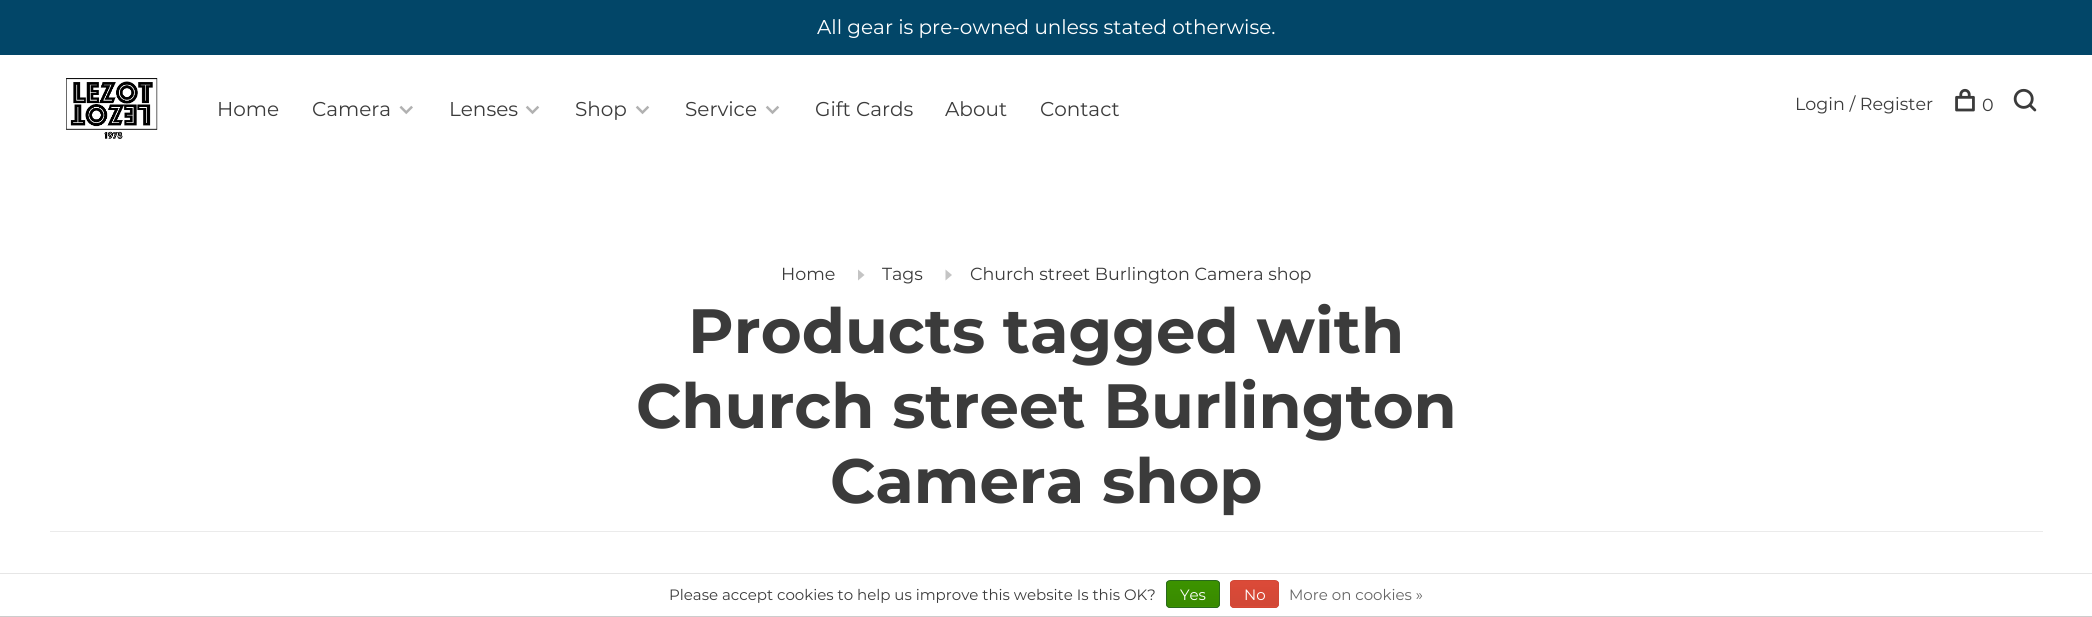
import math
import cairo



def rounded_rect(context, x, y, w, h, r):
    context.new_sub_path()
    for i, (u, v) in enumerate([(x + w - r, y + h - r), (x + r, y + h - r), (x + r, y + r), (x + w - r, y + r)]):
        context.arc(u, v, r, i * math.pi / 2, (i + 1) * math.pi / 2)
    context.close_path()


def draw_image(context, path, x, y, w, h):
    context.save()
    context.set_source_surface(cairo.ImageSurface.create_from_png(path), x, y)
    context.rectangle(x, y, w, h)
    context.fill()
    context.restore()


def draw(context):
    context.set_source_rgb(1, 1, 1)
    context.paint()
    context.set_source_rgb(2 / 255, 70 / 255, 104 / 255)
    context.rectangle(0, 0, 2092, 55)
    context.fill()
    draw_image(context, "images/1.png", 66, 78, 92, 61)
    draw_image(context, "images/2.png", 399, 105, 14, 10)
    draw_image(context, "images/3.png", 525, 105, 15, 10)
    draw_image(context, "images/3.png", 635, 105, 15, 10)
    draw_image(context, "images/3.png", 765, 105, 15, 10)
    draw_image(context, "images/4.png", 1955, 88, 20, 24)
    draw_image(context, "images/5.png", 2013, 88, 24, 24)
    context.set_source_rgb(196 / 255, 196 / 255, 196 / 255)
    context.new_path()
    context.move_to(858, 280.5)
    context.line_to(864.5, 275)
    context.line_to(858, 269.5)
    context.close_path()
    context.fill()
    context.new_path()
    context.move_to(945.5, 280.5)
    context.line_to(952, 275)
    context.line_to(945.5, 269.5)
    context.close_path()
    context.fill()
    context.set_source_rgb(235 / 255, 235 / 255, 235 / 255)
    context.rectangle(50, 531, 1993, 1)
    context.fill()
    context.set_source_rgb(230 / 255, 230 / 255, 230 / 255)
    context.rectangle(0, 573, 2092, 1)
    context.fill()
    context.set_source_rgb(204 / 255, 204 / 255, 204 / 255)
    context.rectangle(0, 616, 2092, 1)
    context.fill()
    context.save()
    rounded_rect(context, 1166, 580, 54, 28, 4)
    context.clip()
    gradient = cairo.LinearGradient(1193, 581, 1193, 606)
    gradient.add_color_stop_rgba(0, 60 / 255, 147 / 255, 0, 1)
    gradient.add_color_stop_rgba(1, 57 / 255, 138 / 255, 0, 1)
    context.set_source(gradient)
    context.rectangle(1166, 581, 54, 25)
    context.fill()
    gradient = cairo.LinearGradient(1193, 606, 1193, 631)
    gradient.add_color_stop_rgba(0, 60 / 255, 147 / 255, 0, 1)
    gradient.add_color_stop_rgba(1, 57 / 255, 138 / 255, 0, 1)
    context.set_source(gradient)
    context.rectangle(1166, 606, 54, 2)
    context.fill()
    context.restore()
    rounded_rect(context, 1166.5, 580.5, 53, 27, 3.5)
    context.set_source_rgb(41 / 255, 105 / 255, 29 / 255)
    context.set_line_width(1)
    context.stroke()
    context.save()
    rounded_rect(context, 1230, 580, 49, 28, 4)
    context.clip()
    gradient = cairo.LinearGradient(1254, 581, 1254, 606)
    gradient.add_color_stop_rgba(0, 220 / 255, 74 / 255, 56 / 255, 1)
    gradient.add_color_stop_rgba(1, 209 / 255, 72 / 255, 54 / 255, 1)
    context.set_source(gradient)
    context.rectangle(1230, 581, 49, 25)
    context.fill()
    gradient = cairo.LinearGradient(1254, 606, 1254, 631)
    gradient.add_color_stop_rgba(0, 220 / 255, 74 / 255, 56 / 255, 1)
    gradient.add_color_stop_rgba(1, 209 / 255, 72 / 255, 54 / 255, 1)
    context.set_source(gradient)
    context.rectangle(1230, 606, 49, 2)
    context.fill()
    context.restore()
    rounded_rect(context, 1230.5, 580.5, 48, 27, 3.5)
    context.set_source_rgb(209 / 255, 72 / 255, 54 / 255)
    context.stroke()
    context.select_font_face("Montserrat")
    context.set_font_size(20)
    context.set_source_rgb(1, 1, 1)
    context.move_to(817, 34)
    context.show_text("All gear is pre-owned unless stated otherwise.")
    context.set_source_rgb(59 / 255, 59 / 255, 59 / 255)
    context.move_to(217, 116)
    context.show_text("Home")
    context.move_to(312, 116)
    context.show_text("Camera")
    context.move_to(449, 116)
    context.show_text("Lenses")
    context.move_to(575, 116)
    context.show_text("Shop")
    context.move_to(685, 116)
    context.show_text("Service")
    context.move_to(815, 116)
    context.show_text("Gift Cards")
    context.move_to(945, 116)
    context.show_text("About")
    context.move_to(1040, 116)
    context.show_text("Contact")
    context.set_font_size(17.5)
    context.move_to(1795, 110)
    context.show_text("Login / Register")
    context.move_to(1982, 111)
    context.show_text("0")
    context.move_to(781, 280)
    context.show_text("Home")
    context.move_to(882, 280)
    context.show_text("Tags")
    context.move_to(970, 280)
    context.show_text("Church street Burlington Camera shop")
    context.select_font_face("Montserrat", cairo.FontSlant.NORMAL, cairo.FontWeight.BOLD)
    context.set_font_size(62.5)
    context.move_to(688, 353)
    context.show_text("Products tagged with")
    context.move_to(636, 428)
    context.show_text("Church street Burlington")
    context.move_to(830, 503)
    context.show_text("Camera shop")
    context.select_font_face("Montserrat")
    context.set_font_size(15)
    context.move_to(669, 600)
    context.show_text("Please accept cookies to help us improve this website Is this OK?")
    context.set_source_rgb(1, 1, 1)
    context.move_to(1180, 600)
    context.show_text("Yes")
    context.move_to(1244, 600)
    context.show_text("No")
    context.set_source_rgb(102 / 255, 102 / 255, 102 / 255)
    context.move_to(1289, 600)
    context.show_text("More on cookies »")


surface = cairo.ImageSurface(cairo.Format.RGB24, 2092, 617)
context = cairo.Context(surface)
options = cairo.FontOptions()
options.set_hint_metrics(cairo.HintMetrics.OFF)
options.set_hint_style(cairo.HintStyle.NONE)
context.set_font_options(options)
context.set_miter_limit(4)
draw(context)
surface.write_to_png("out.png")
